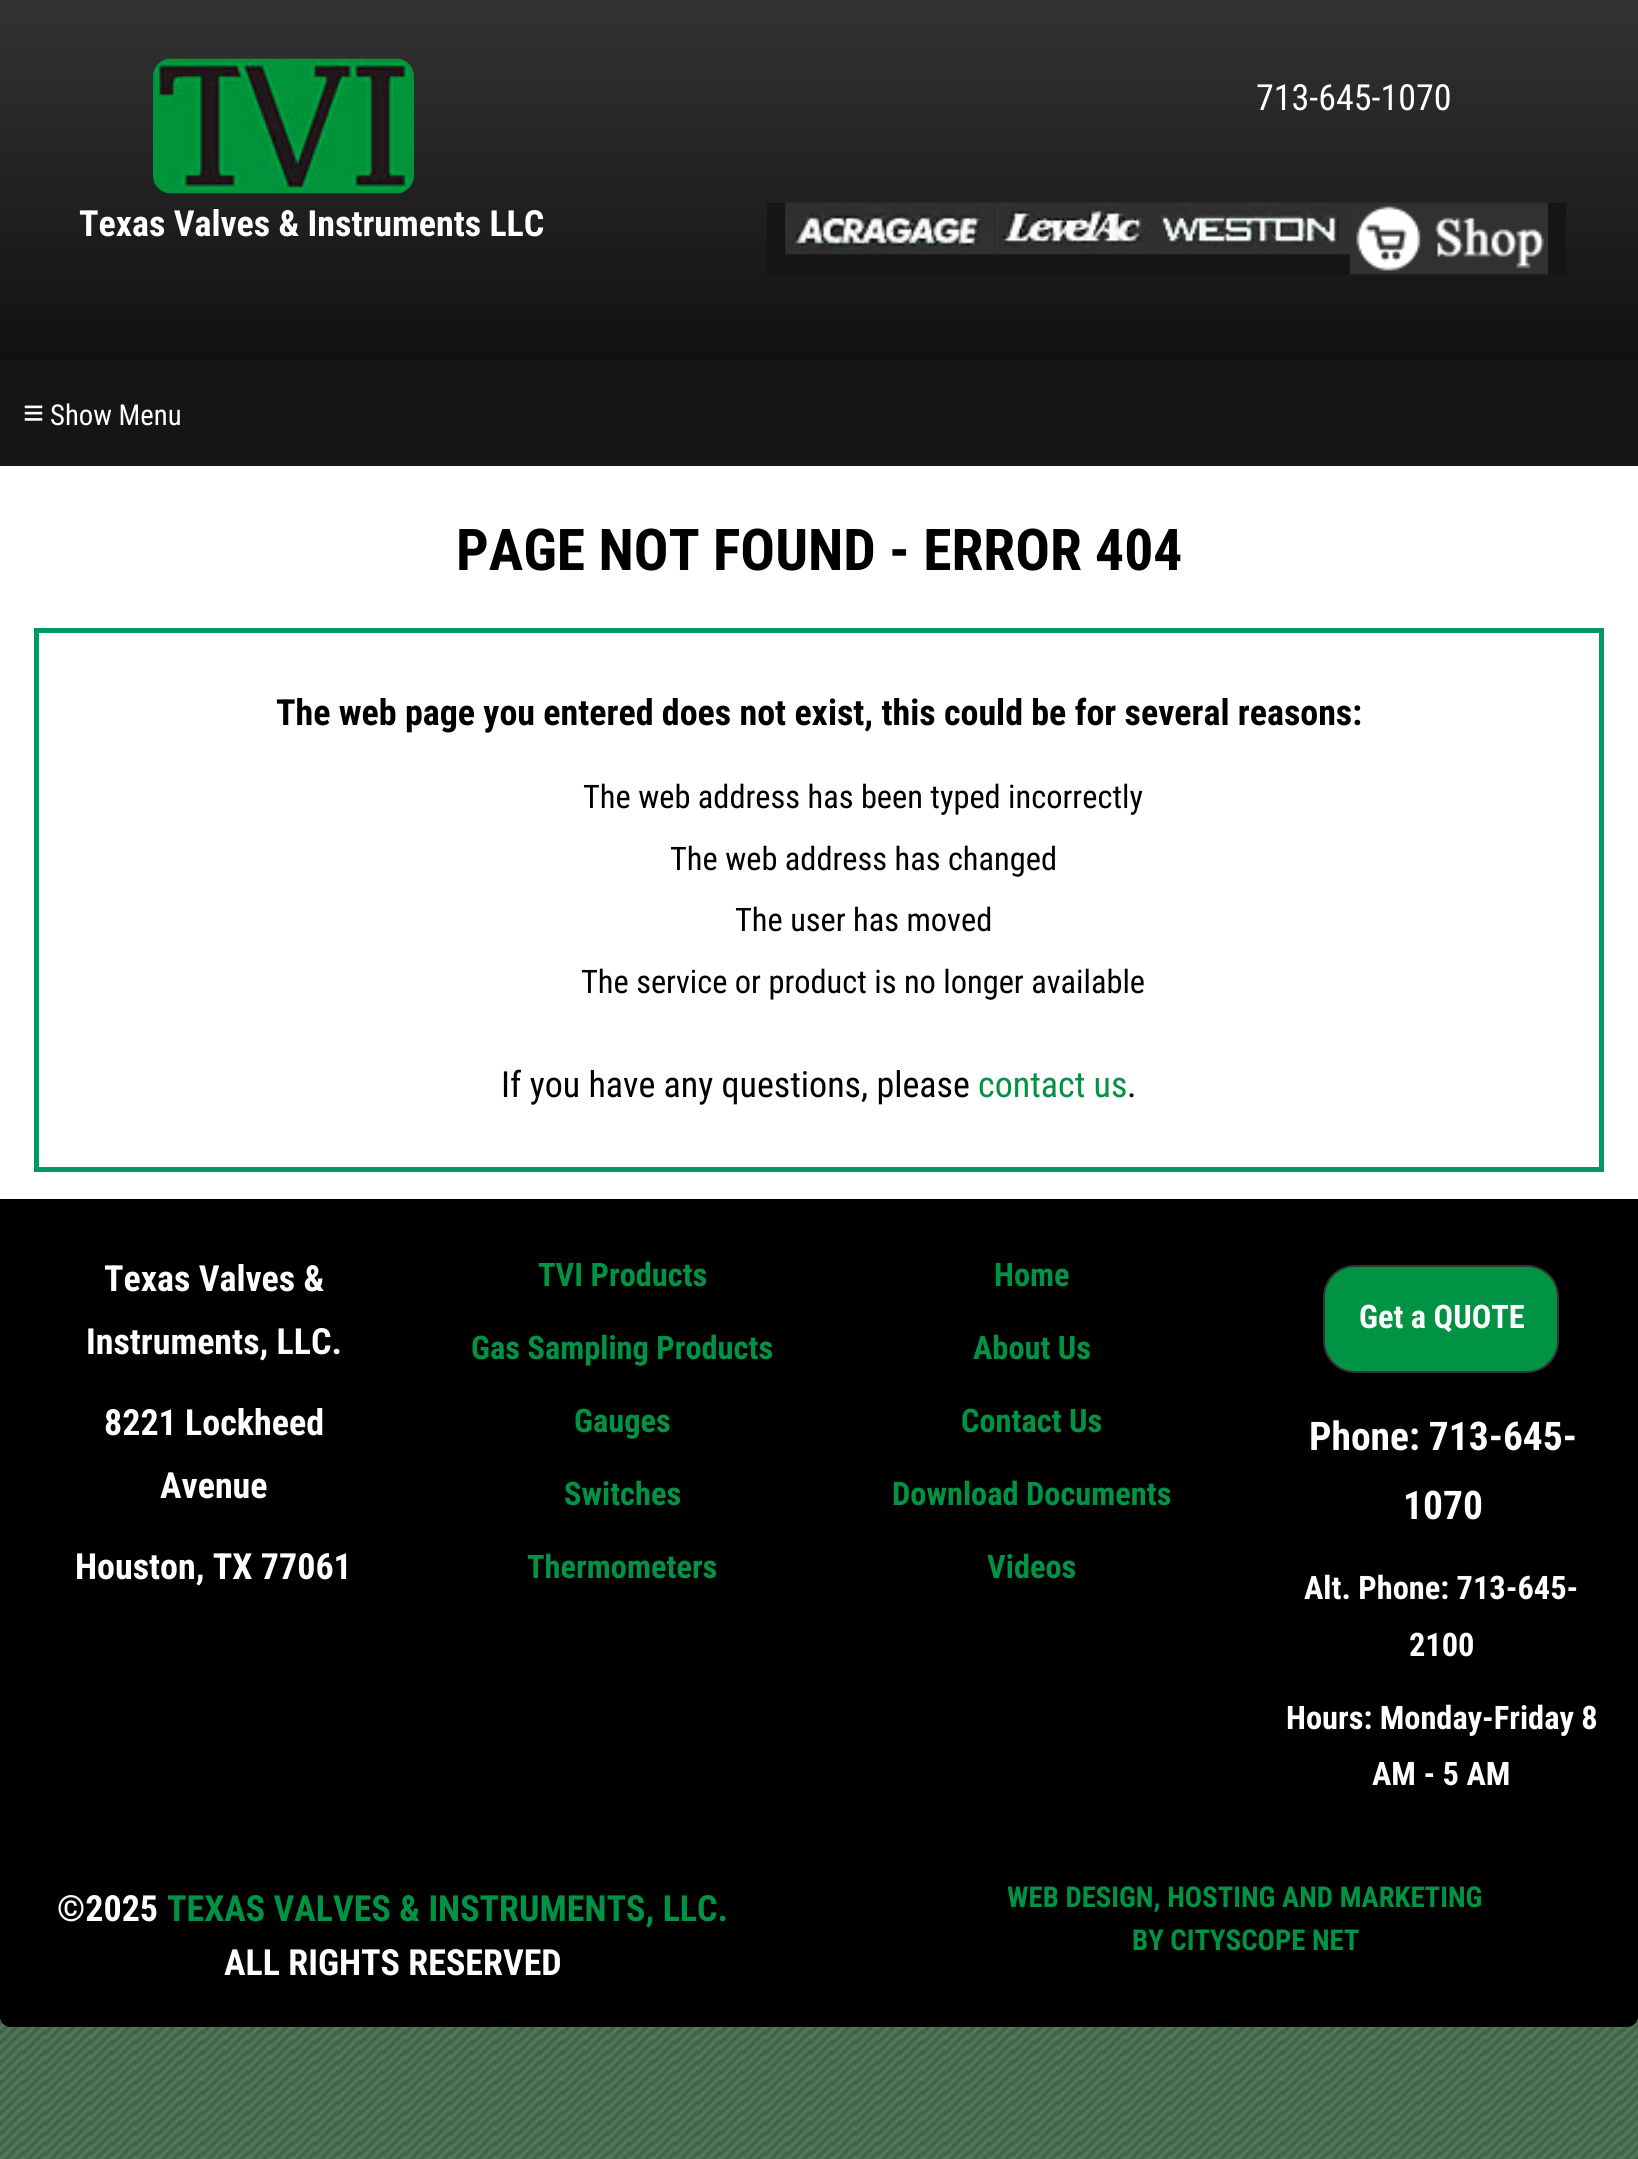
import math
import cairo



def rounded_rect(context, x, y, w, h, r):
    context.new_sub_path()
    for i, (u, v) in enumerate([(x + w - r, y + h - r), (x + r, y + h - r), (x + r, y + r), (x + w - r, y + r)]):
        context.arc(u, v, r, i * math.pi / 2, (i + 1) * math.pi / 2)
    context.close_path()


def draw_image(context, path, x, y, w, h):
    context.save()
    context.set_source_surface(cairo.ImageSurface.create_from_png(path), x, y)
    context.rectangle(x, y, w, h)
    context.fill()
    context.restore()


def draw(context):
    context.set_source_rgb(1, 1, 1)
    context.paint()
    draw_image(context, "images/1.png", 0, 2016, 1638, 143)
    gradient = cairo.LinearGradient(819, 0, 819, 360)
    gradient.add_color_stop_rgba(0, 51 / 255, 51 / 255, 51 / 255, 1)
    gradient.add_color_stop_rgba(1, 17 / 255, 17 / 255, 17 / 255, 1)
    context.set_source(gradient)
    context.rectangle(0, 0, 1638, 360)
    context.fill()
    draw_image(context, "images/2.png", 153, 58, 261, 136)
    context.set_source_rgb(21 / 255, 21 / 255, 21 / 255)
    context.rectangle(767, 203, 799, 72)
    context.fill()
    draw_image(context, "images/3.png", 785, 202, 210, 53)
    draw_image(context, "images/4.png", 994, 202, 158, 53)
    draw_image(context, "images/5.png", 1152, 202, 198, 53)
    draw_image(context, "images/6.png", 1350, 202, 198, 73)
    context.set_source_rgb(1, 1, 1)
    context.new_path()
    context.move_to(0, 360)
    context.line_to(1638, 360)
    context.line_to(1638, 2004)
    context.curve_to(1638, 2016.5, 1627.5, 2027, 1615, 2027)
    context.line_to(23, 2027)
    context.curve_to(10.5, 2027, 0, 2016.5, 0, 2004)
    context.close_path()
    context.fill()
    context.set_source_rgb(21 / 255, 21 / 255, 21 / 255)
    context.rectangle(0, 360, 1638, 106)
    context.fill()
    context.rectangle(36.5, 630.5, 1565, 539)
    context.set_source_rgb(0, 153 / 255, 102 / 255)
    context.set_line_width(5)
    context.stroke()
    context.set_source_rgb(0, 0, 0)
    context.new_path()
    context.move_to(0, 1199)
    context.line_to(1638, 1199)
    context.line_to(1638, 2016)
    context.curve_to(1638, 2022, 1633, 2027, 1627, 2027)
    context.line_to(11, 2027)
    context.curve_to(5, 2027, 0, 2022, 0, 2016)
    context.close_path()
    context.fill()
    context.set_source_rgb(0, 147 / 255, 68 / 255)
    rounded_rect(context, 1324, 1266, 234, 106, 31)
    context.fill_preserve()
    context.set_source_rgb(51 / 255, 51 / 255, 51 / 255)
    context.set_line_width(2)
    context.stroke()
    context.set_source_rgb(0, 0, 0)
    context.new_path()
    context.move_to(0, 1847)
    context.line_to(1638, 1847)
    context.line_to(1638, 2016)
    context.curve_to(1638, 2022, 1633, 2027, 1627, 2027)
    context.line_to(11, 2027)
    context.curve_to(5, 2027, 0, 2022, 0, 2016)
    context.close_path()
    context.fill()
    context.select_font_face("Roboto Condensed")
    context.set_font_size(36)
    context.set_source_rgb(1, 1, 1)
    context.move_to(1256, 110)
    context.show_text("713-645-1070")
    context.select_font_face("Roboto Condensed", cairo.FontSlant.NORMAL, cairo.FontWeight.BOLD)
    context.move_to(79, 236)
    context.show_text("Texas Valves & Instruments LLC")
    context.select_font_face("Liberation Sans")
    context.move_to(23, 425)
    context.show_text("≡")
    context.select_font_face("Roboto Condensed")
    context.set_font_size(28.75)
    context.move_to(50, 425)
    context.show_text("Show Menu")
    context.select_font_face("Roboto Condensed", cairo.FontSlant.NORMAL, cairo.FontWeight.BOLD)
    context.set_font_size(57.6)
    context.set_source_rgb(0, 0, 0)
    context.move_to(456, 570)
    context.show_text("PAGE NOT FOUND - ERROR 404")
    context.set_font_size(36)
    context.move_to(276, 725)
    context.show_text("The web page you entered does not exist, this could be for several reasons:")
    context.select_font_face("Roboto Condensed")
    context.set_font_size(32.4)
    context.move_to(583, 808)
    context.show_text("The web address has been typed incorrectly")
    context.move_to(670, 870)
    context.show_text("The web address has changed")
    context.move_to(735, 931)
    context.show_text("The user has moved")
    context.move_to(581, 993)
    context.show_text("The service or product is no longer available")
    context.set_font_size(36)
    context.move_to(501, 1097)
    context.show_text("If you have any questions, please")
    context.set_source_rgb(0, 147 / 255, 68 / 255)
    context.move_to(978, 1097)
    context.show_text("contact us")
    context.set_source_rgb(0, 0, 0)
    context.move_to(1127, 1097)
    context.show_text(".")
    context.select_font_face("Roboto Condensed", cairo.FontSlant.NORMAL, cairo.FontWeight.BOLD)
    context.set_source_rgb(1, 1, 1)
    context.move_to(104, 1291)
    context.show_text("Texas Valves &")
    context.move_to(86, 1354)
    context.show_text("Instruments, LLC.")
    context.move_to(104, 1435)
    context.show_text("8221 Lockheed")
    context.move_to(160, 1498)
    context.show_text("Avenue")
    context.move_to(75, 1579)
    context.show_text("Houston, TX 77061")
    context.set_font_size(32.4)
    context.set_source_rgb(0, 147 / 255, 68 / 255)
    context.move_to(538, 1286)
    context.show_text("TVI Products")
    context.move_to(471, 1359)
    context.show_text("Gas Sampling Products")
    context.move_to(574, 1432)
    context.show_text("Gauges")
    context.move_to(564, 1505)
    context.show_text("Switches")
    context.move_to(527, 1578)
    context.show_text("Thermometers")
    context.move_to(994, 1286)
    context.show_text("Home")
    context.move_to(973, 1359)
    context.show_text("About Us")
    context.move_to(961, 1432)
    context.show_text("Contact Us")
    context.move_to(892, 1505)
    context.show_text("Download Documents")
    context.move_to(987, 1578)
    context.show_text("Videos")
    context.set_source_rgb(1, 1, 1)
    context.move_to(1359, 1328)
    context.show_text("Get a QUOTE")
    context.set_font_size(39.5)
    context.move_to(1309, 1450)
    context.show_text("Phone: 713-645-")
    context.move_to(1403, 1519)
    context.show_text("1070")
    context.set_font_size(32.4)
    context.move_to(1304, 1599)
    context.show_text("Alt. Phone: 713-645-")
    context.move_to(1409, 1656)
    context.show_text("2100")
    context.move_to(1286, 1729)
    context.show_text("Hours: Monday-Friday 8")
    context.move_to(1372, 1785)
    context.show_text("AM - 5 AM")
    context.set_font_size(36)
    context.move_to(57, 1921)
    context.show_text("©2025")
    context.set_source_rgb(0, 147 / 255, 68 / 255)
    context.move_to(167, 1921)
    context.show_text("TEXAS VALVES & INSTRUMENTS, LLC.")
    context.set_source_rgb(1, 1, 1)
    context.move_to(224, 1975)
    context.show_text("ALL RIGHTS RESERVED")
    context.set_font_size(28.75)
    context.set_source_rgb(0, 147 / 255, 68 / 255)
    context.move_to(1007, 1907)
    context.show_text("WEB DESIGN, HOSTING AND MARKETING")
    context.move_to(1132, 1950)
    context.show_text("BY CITYSCOPE NET")


surface = cairo.ImageSurface(cairo.Format.RGB24, 1638, 2159)
context = cairo.Context(surface)
options = cairo.FontOptions()
options.set_hint_metrics(cairo.HintMetrics.OFF)
options.set_hint_style(cairo.HintStyle.NONE)
context.set_font_options(options)
context.set_miter_limit(4)
draw(context)
surface.write_to_png("out.png")
